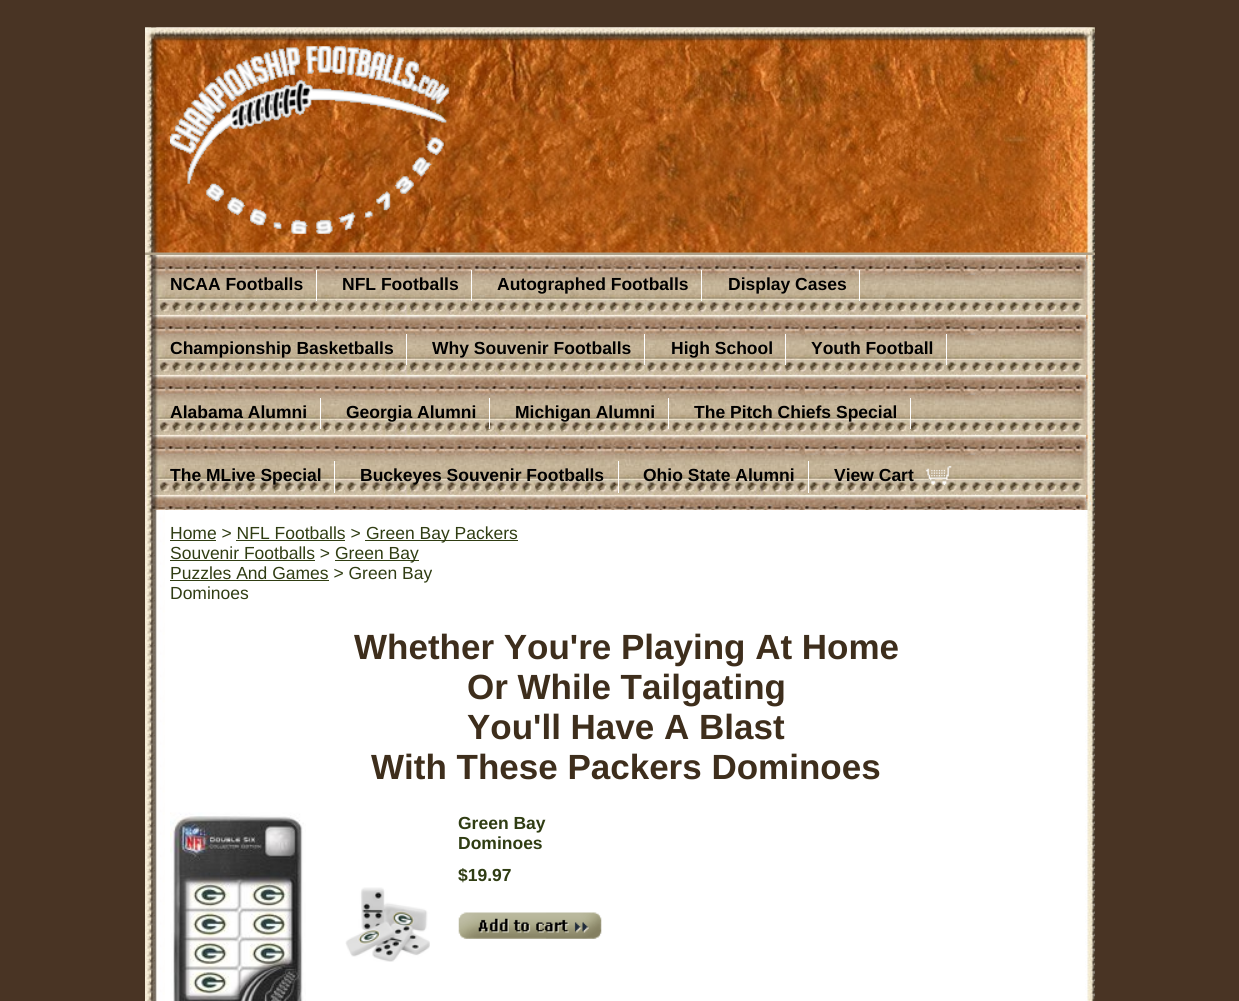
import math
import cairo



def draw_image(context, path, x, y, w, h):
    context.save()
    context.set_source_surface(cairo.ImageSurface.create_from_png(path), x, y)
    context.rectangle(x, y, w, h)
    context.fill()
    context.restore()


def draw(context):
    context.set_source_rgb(73 / 255, 52 / 255, 36 / 255)
    context.paint()
    draw_image(context, "images/1.png", 145, 27, 950, 974)
    context.set_source_rgb(174 / 255, 161 / 255, 137 / 255)
    context.rectangle(145, 252, 950, 3)
    context.fill()
    draw_image(context, "images/2.png", 145, 27, 950, 226)
    draw_image(context, "images/3.png", 170, 46, 279, 188)
    draw_image(context, "images/4.png", 145, 255, 950, 255)
    context.set_source_rgb(1, 1, 1)
    context.rectangle(316, 270, 1, 31)
    context.fill()
    context.rectangle(471, 270, 1, 31)
    context.fill()
    context.rectangle(701, 270, 1, 31)
    context.fill()
    context.rectangle(859, 270, 1, 31)
    context.fill()
    context.rectangle(406, 334, 1, 31)
    context.fill()
    context.rectangle(644, 334, 1, 31)
    context.fill()
    context.rectangle(785, 334, 1, 31)
    context.fill()
    context.rectangle(946, 334, 1, 31)
    context.fill()
    context.rectangle(320, 398, 1, 31)
    context.fill()
    context.rectangle(489, 398, 1, 31)
    context.fill()
    context.rectangle(668, 398, 1, 31)
    context.fill()
    context.rectangle(910, 398, 1, 31)
    context.fill()
    context.rectangle(334, 461, 1, 32)
    context.fill()
    context.rectangle(618, 461, 1, 32)
    context.fill()
    context.rectangle(808, 461, 1, 32)
    context.fill()
    draw_image(context, "images/5.png", 926, 466, 26, 19)
    context.set_source_rgb(48 / 255, 61 / 255, 19 / 255)
    context.rectangle(170, 540, 46, 1)
    context.fill()
    context.rectangle(365, 540, 153, 1)
    context.fill()
    context.rectangle(236, 540, 109, 1)
    context.fill()
    context.rectangle(170, 560, 145, 1)
    context.fill()
    context.rectangle(335, 560, 84, 1)
    context.fill()
    context.rectangle(170, 580, 159, 1)
    context.fill()
    draw_image(context, "images/6.png", 170, 812, 136, 189)
    draw_image(context, "images/7.png", 345, 887, 85, 75)
    draw_image(context, "images/8.png", 458, 912, 144, 27)
    context.select_font_face("Liberation Sans", cairo.FontSlant.NORMAL, cairo.FontWeight.BOLD)
    context.set_font_size(17.5)
    context.set_source_rgb(0, 0, 0)
    context.move_to(170, 290)
    context.show_text("NCAA Footballs")
    context.move_to(342, 290)
    context.show_text("NFL Footballs")
    context.move_to(497, 290)
    context.show_text("Autographed Footballs")
    context.move_to(728, 290)
    context.show_text("Display Cases")
    context.move_to(170, 354)
    context.show_text("Championship Basketballs")
    context.move_to(432, 354)
    context.show_text("Why Souvenir Footballs")
    context.move_to(671, 354)
    context.show_text("High School")
    context.move_to(811, 354)
    context.show_text("Youth Football")
    context.move_to(170, 418)
    context.show_text("Alabama Alumni")
    context.move_to(346, 418)
    context.show_text("Georgia Alumni")
    context.move_to(515, 418)
    context.show_text("Michigan Alumni")
    context.move_to(694, 418)
    context.show_text("The Pitch Chiefs Special")
    context.move_to(170, 481)
    context.show_text("The MLive Special")
    context.move_to(360, 481)
    context.show_text("Buckeyes Souvenir Footballs")
    context.move_to(643, 481)
    context.show_text("Ohio State Alumni")
    context.move_to(834, 481)
    context.show_text("View Cart")
    context.select_font_face("Liberation Sans")
    context.set_source_rgb(48 / 255, 61 / 255, 19 / 255)
    context.move_to(170, 539)
    context.show_text("Home > NFL Footballs >")
    context.move_to(366, 539)
    context.show_text("Green Bay Packers")
    context.move_to(170, 559)
    context.show_text("Souvenir Footballs >")
    context.move_to(335, 559)
    context.show_text("Green Bay")
    context.move_to(170, 579)
    context.show_text("Puzzles And Games > Green Bay")
    context.move_to(170, 599)
    context.show_text("Dominoes")
    context.select_font_face("Liberation Sans", cairo.FontSlant.NORMAL, cairo.FontWeight.BOLD)
    context.set_font_size(35)
    context.set_source_rgb(62 / 255, 46 / 255, 28 / 255)
    context.move_to(354, 659)
    context.show_text("Whether You're Playing At Home")
    context.move_to(467, 699)
    context.show_text("Or While Tailgating")
    context.move_to(467, 739)
    context.show_text("You'll Have A Blast")
    context.move_to(371, 779)
    context.show_text("With These Packers Dominoes")
    context.set_font_size(17.5)
    context.set_source_rgb(48 / 255, 61 / 255, 19 / 255)
    context.move_to(458, 829)
    context.show_text("Green Bay")
    context.move_to(458, 849)
    context.show_text("Dominoes")
    context.move_to(458, 881)
    context.show_text("$19.97")


surface = cairo.ImageSurface(cairo.Format.RGB24, 1239, 1001)
context = cairo.Context(surface)
options = cairo.FontOptions()
options.set_hint_metrics(cairo.HintMetrics.OFF)
options.set_hint_style(cairo.HintStyle.NONE)
context.set_font_options(options)
context.set_miter_limit(4)
draw(context)
surface.write_to_png("out.png")
